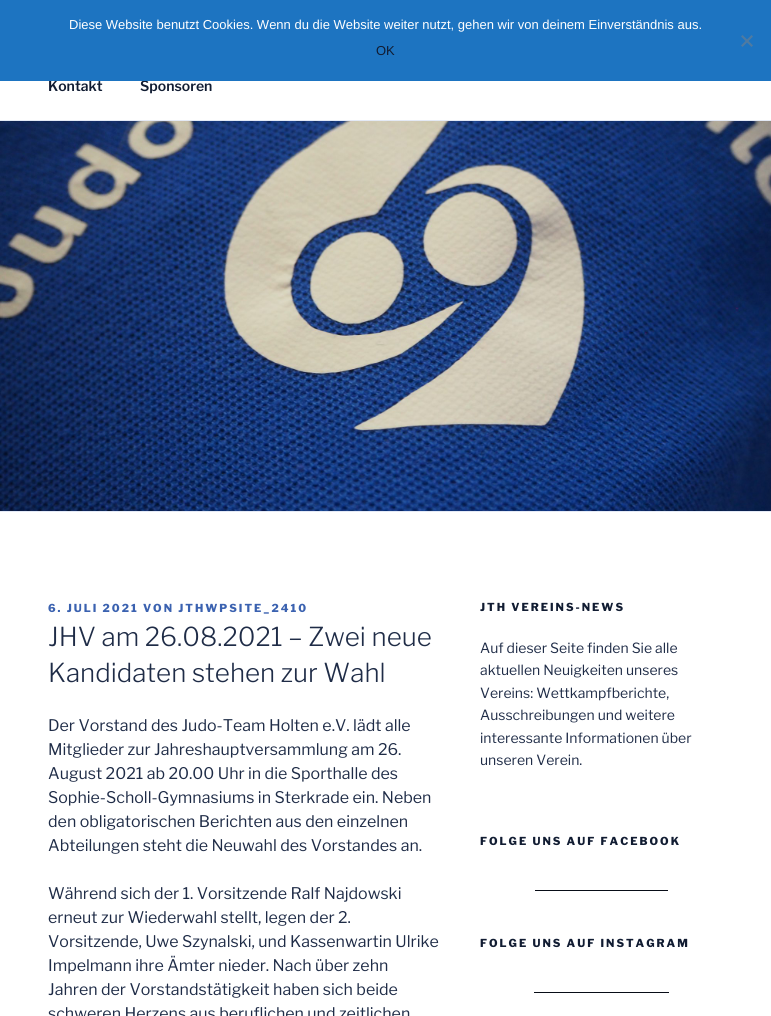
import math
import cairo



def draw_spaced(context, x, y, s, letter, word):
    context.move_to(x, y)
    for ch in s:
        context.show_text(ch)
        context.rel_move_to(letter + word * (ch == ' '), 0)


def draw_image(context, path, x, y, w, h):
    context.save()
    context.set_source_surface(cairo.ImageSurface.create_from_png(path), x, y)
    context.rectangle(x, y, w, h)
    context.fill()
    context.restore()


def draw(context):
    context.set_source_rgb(1, 1, 1)
    context.paint()
    context.set_source_rgb(228 / 255, 234 / 255, 246 / 255)
    context.rectangle(0, 120, 771, 1)
    context.fill()
    context.rectangle(0, 511, 771, 1)
    context.fill()
    draw_image(context, "images/1.png", 0, 121, 771, 390)
    context.set_source_rgb(8 / 255, 13 / 255, 23 / 255)
    context.rectangle(535, 890, 133, 1)
    context.fill()
    context.rectangle(534, 992, 135, 1)
    context.fill()
    context.select_font_face("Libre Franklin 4 Thin")
    context.set_font_size(14)
    context.set_source_rgb(17 / 255, 28 / 255, 50 / 255)
    context.move_to(48, 91)
    context.show_text("Kontakt")
    context.move_to(140, 91)
    context.show_text("Sponsoren")
    context.set_source_rgb(29 / 255, 116 / 255, 193 / 255)
    context.rectangle(0, 0, 771, 81)
    context.fill()
    context.set_source_rgb(79 / 255, 122 / 255, 161 / 255)
    context.new_path()
    context.move_to(751.5, 35)
    context.line_to(753, 36.5)
    context.line_to(742.5, 47)
    context.line_to(741, 45.5)
    context.close_path()
    context.fill()
    context.new_path()
    context.move_to(741, 36.5)
    context.line_to(742.5, 35)
    context.line_to(753, 45.5)
    context.line_to(751.5, 47)
    context.close_path()
    context.fill()
    context.select_font_face("Liberation Sans")
    context.set_font_size(13)
    context.set_source_rgb(17 / 255, 28 / 255, 50 / 255)
    context.move_to(376, 55)
    context.show_text("OK")
    context.set_source_rgb(1, 1, 1)
    context.move_to(69, 29)
    context.show_text("Diese Website benutzt Cookies. Wenn du die Website weiter nutzt, gehen wir von deinem Einverständnis aus.")
    context.select_font_face("Libre Franklin Thin")
    context.set_font_size(11)
    context.set_source_rgb(59 / 255, 98 / 255, 176 / 255)
    draw_spaced(context, 48, 612, "6. JULI 2021 VON JTHWPSITE_2410", 2, 0)
    context.select_font_face("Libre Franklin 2 Thin")
    context.set_font_size(26)
    context.set_source_rgb(31 / 255, 44 / 255, 71 / 255)
    context.move_to(48, 646)
    context.show_text("JHV am 26.08.2021 – Zwei neue")
    context.move_to(48, 682)
    context.show_text("Kandidaten stehen zur Wahl")
    context.select_font_face("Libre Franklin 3 Thin")
    context.set_font_size(16)
    context.move_to(48, 731)
    context.show_text("Der Vorstand des Judo-Team Holten e.V. lädt alle")
    context.move_to(48, 755)
    context.show_text("Mitglieder zur Jahreshauptversammlung am 26.")
    context.move_to(48, 779)
    context.show_text("August 2021 ab 20.00 Uhr in die Sporthalle des")
    context.move_to(48, 803)
    context.show_text("Sophie-Scholl-Gymnasiums in Sterkrade ein. Neben")
    context.move_to(48, 827)
    context.show_text("den obligatorischen Berichten aus den einzelnen")
    context.move_to(48, 851)
    context.show_text("Abteilungen steht die Neuwahl des Vorstandes an.")
    context.move_to(48, 899)
    context.show_text("Während sich der 1. Vorsitzende Ralf Najdowski")
    context.move_to(48, 923)
    context.show_text("erneut zur Wiederwahl stellt, legen der 2.")
    context.move_to(48, 947)
    context.show_text("Vorsitzende, Uwe Szynalski, und Kassenwartin Ulrike")
    context.move_to(48, 971)
    context.show_text("Impelmann ihre Ämter nieder. Nach über zehn")
    context.move_to(48, 995)
    context.show_text("Jahren der Vorstandstätigkeit haben sich beide")
    context.move_to(48, 1019)
    context.show_text("schweren Herzens aus beruflichen und zeitlichen")
    context.select_font_face("Libre Franklin Thin")
    context.set_font_size(11)
    context.set_source_rgb(17 / 255, 28 / 255, 50 / 255)
    draw_spaced(context, 480, 611, "JTH VEREINS-NEWS", 2, 0)
    context.select_font_face("Libre Franklin 3 Thin")
    context.set_font_size(14)
    context.set_source_rgb(31 / 255, 44 / 255, 71 / 255)
    context.move_to(480, 653)
    context.show_text("Auf dieser Seite finden Sie alle")
    context.move_to(480, 675)
    context.show_text("aktuellen Neuigkeiten unseres")
    context.move_to(480, 698)
    context.show_text("Vereins: Wettkampfberichte,")
    context.move_to(480, 720)
    context.show_text("Ausschreibungen und weitere")
    context.move_to(480, 743)
    context.show_text("interessante Informationen über")
    context.move_to(480, 765)
    context.show_text("unseren Verein.")
    context.select_font_face("Libre Franklin Thin")
    context.set_font_size(11)
    context.set_source_rgb(17 / 255, 28 / 255, 50 / 255)
    draw_spaced(context, 480, 845, "FOLGE UNS AUF FACEBOOK", 2, 0)
    draw_spaced(context, 480, 947, "FOLGE UNS AUF INSTAGRAM", 2, 0)


surface = cairo.ImageSurface(cairo.Format.RGB24, 771, 1016)
context = cairo.Context(surface)
options = cairo.FontOptions()
options.set_hint_metrics(cairo.HintMetrics.OFF)
options.set_hint_style(cairo.HintStyle.NONE)
context.set_font_options(options)
context.set_miter_limit(4)
draw(context)
surface.write_to_png("out.png")
